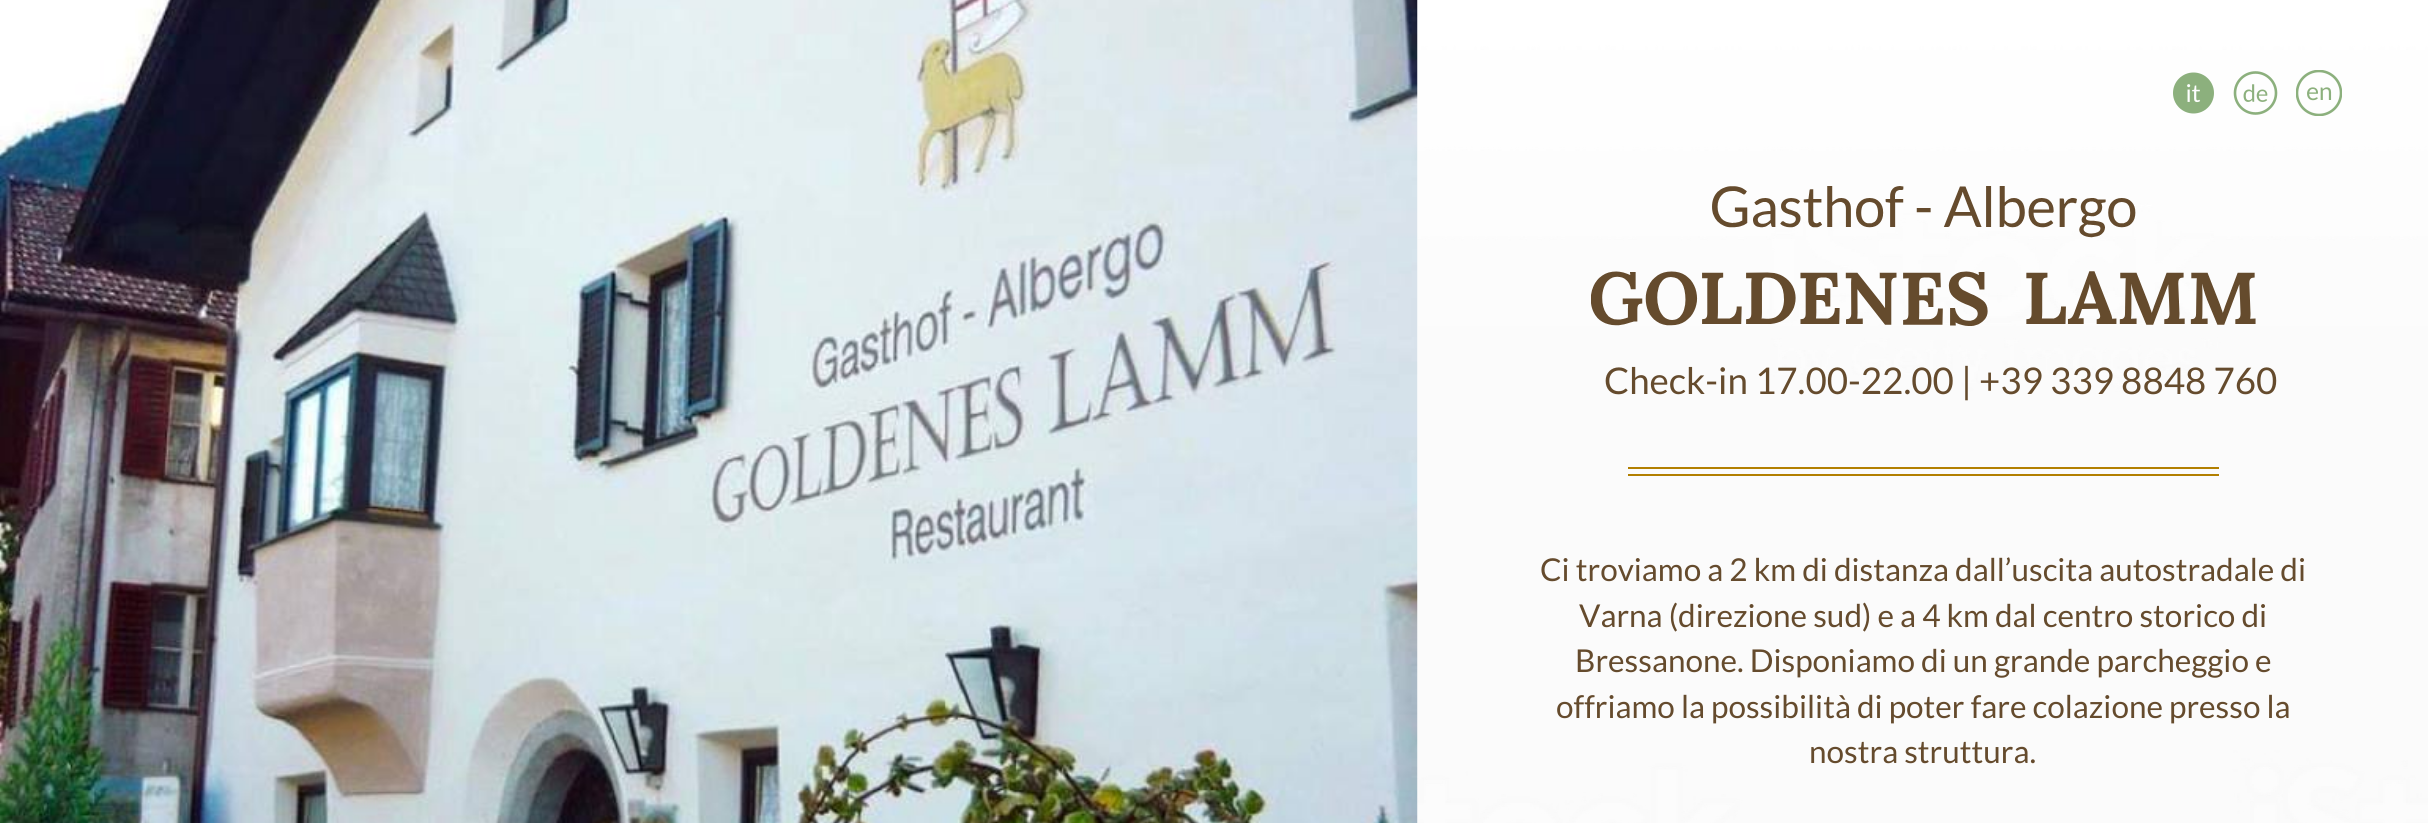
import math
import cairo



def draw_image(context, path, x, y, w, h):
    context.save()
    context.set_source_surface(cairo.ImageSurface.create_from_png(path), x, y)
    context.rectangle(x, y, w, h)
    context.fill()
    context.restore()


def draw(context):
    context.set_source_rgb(1, 1, 1)
    context.paint()
    draw_image(context, "images/1.png", 0, 0, 1418, 823)
    draw_image(context, "images/2.png", 1417, 0, 1011, 823)
    draw_image(context, "images/3.png", 2173, 72, 41, 42)
    draw_image(context, "images/4.png", 2233, 71, 45, 44)
    draw_image(context, "images/5.png", 2296, 70, 46, 46)
    draw_image(context, "images/6.png", 1591, 186, 665, 140)
    context.set_source_rgb(178 / 255, 127 / 255, 0)
    context.rectangle(1628, 467, 591, 2)
    context.fill()
    context.rectangle(1628, 474, 591, 2)
    context.fill()
    context.select_font_face("Lato")
    context.set_font_size(36.75)
    context.set_source_rgb(101 / 255, 75 / 255, 45 / 255)
    context.move_to(1604, 394)
    context.show_text("Check-in 17.00-22.00 | +39 339 8848 760")
    context.set_font_size(31.5)
    context.move_to(1540, 581)
    context.show_text("Ci troviamo a 2 km di distanza dall’uscita autostradale di")
    context.move_to(1579, 627)
    context.show_text("Varna (direzione sud) e a 4 km dal centro storico di")
    context.move_to(1575, 672)
    context.show_text("Bressanone. Disponiamo di un grande parcheggio e")
    context.move_to(1556, 718)
    context.show_text("offriamo la possibilità di poter fare colazione presso la")
    context.move_to(1809, 763)
    context.show_text("nostra struttura.")


surface = cairo.ImageSurface(cairo.Format.RGB24, 2428, 823)
context = cairo.Context(surface)
options = cairo.FontOptions()
options.set_hint_metrics(cairo.HintMetrics.OFF)
options.set_hint_style(cairo.HintStyle.NONE)
context.set_font_options(options)
context.set_miter_limit(4)
draw(context)
surface.write_to_png("out.png")
